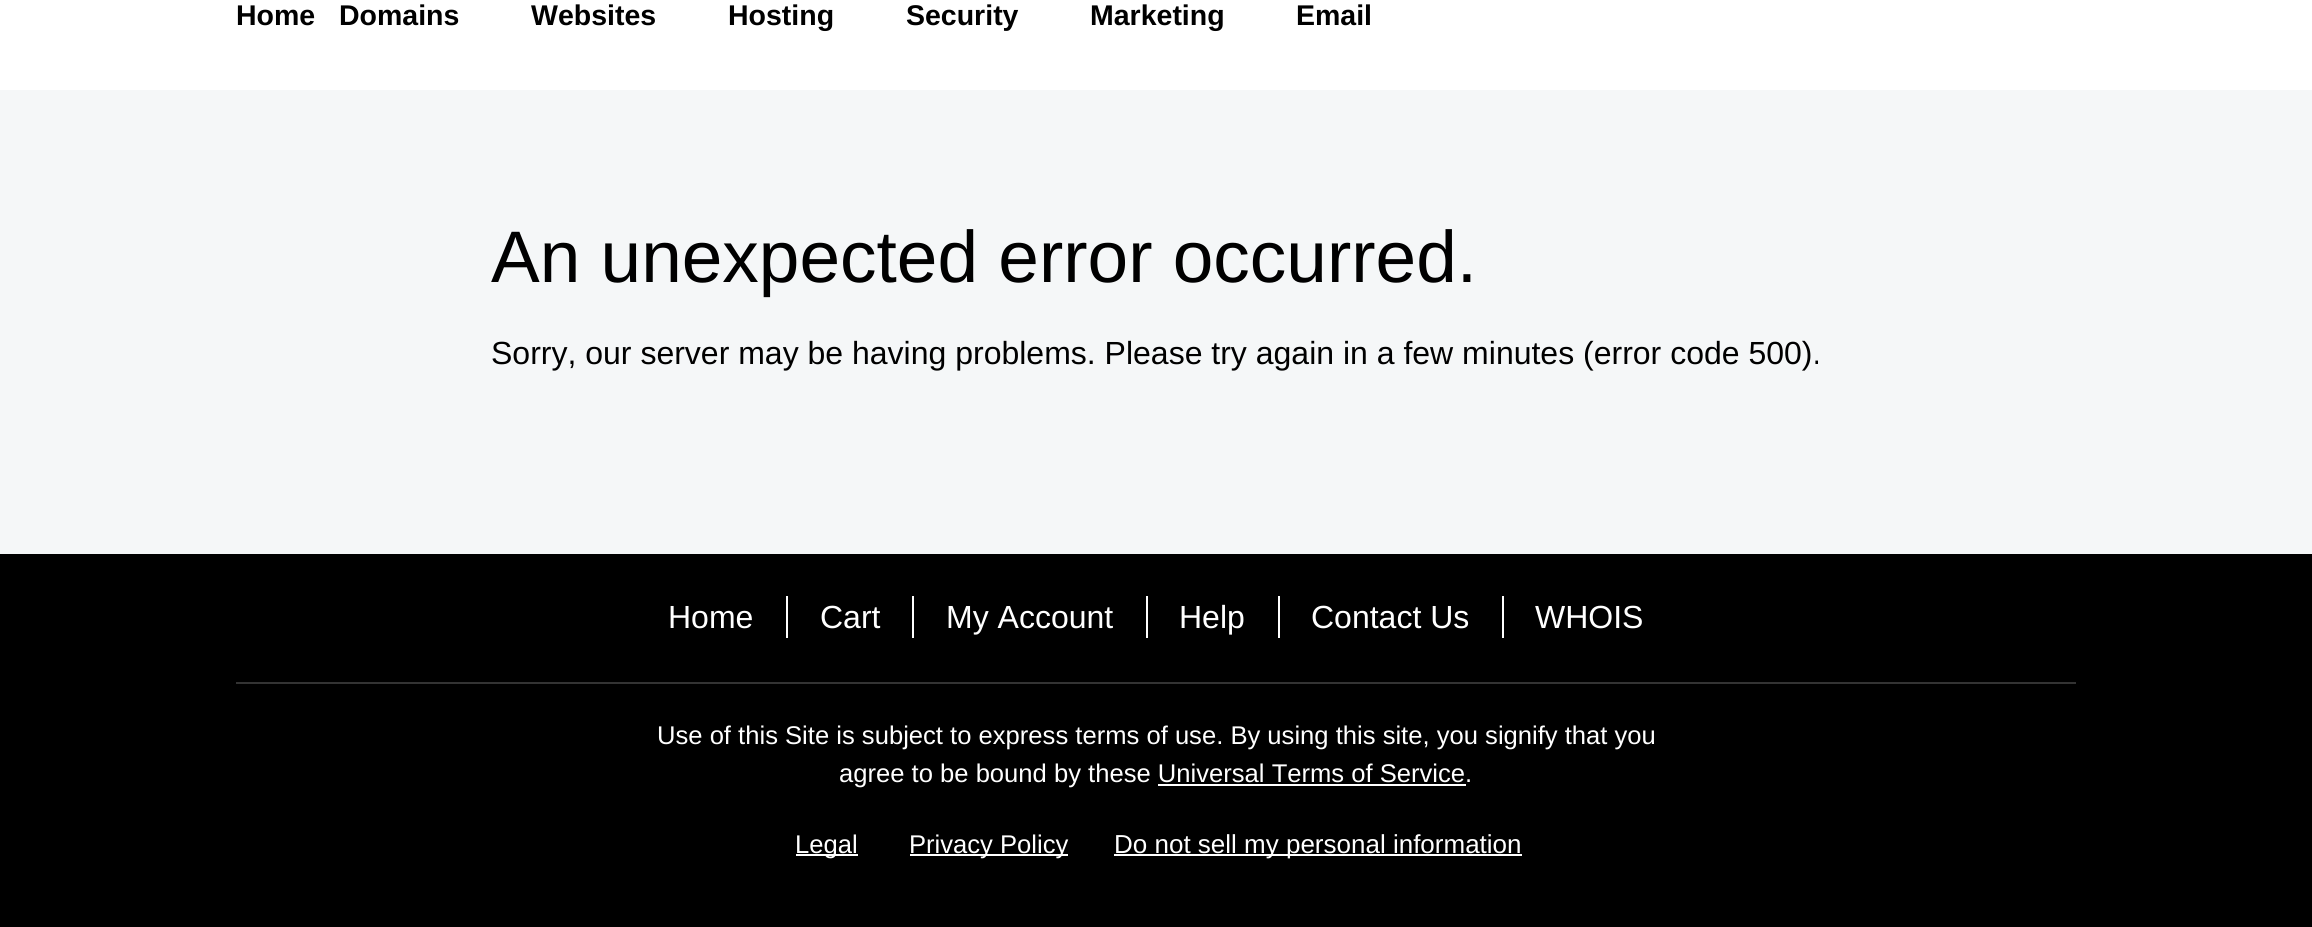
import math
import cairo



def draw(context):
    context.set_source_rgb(245 / 255, 247 / 255, 248 / 255)
    context.paint()
    context.set_source_rgb(1, 1, 1)
    context.rectangle(0, 0, 2312, 90)
    context.fill()
    context.set_source_rgb(0, 0, 0)
    context.rectangle(0, 554, 2312, 373)
    context.fill()
    context.set_source_rgb(51 / 255, 51 / 255, 51 / 255)
    context.rectangle(236, 682, 1840, 2)
    context.fill()
    context.set_source_rgb(1, 1, 1)
    context.rectangle(786, 596, 2, 42)
    context.fill()
    context.rectangle(912, 596, 2, 42)
    context.fill()
    context.rectangle(1146, 596, 2, 42)
    context.fill()
    context.rectangle(1278, 596, 2, 42)
    context.fill()
    context.rectangle(1502, 596, 2, 42)
    context.fill()
    context.rectangle(1158, 784, 308, 2)
    context.fill()
    context.rectangle(796, 854, 62, 2)
    context.fill()
    context.rectangle(910, 854, 158, 2)
    context.fill()
    context.rectangle(1114, 854, 408, 2)
    context.fill()
    context.select_font_face("Liberation Sans", cairo.FontSlant.NORMAL, cairo.FontWeight.BOLD)
    context.set_font_size(28.5)
    context.set_source_rgb(0, 0, 0)
    context.move_to(236, 25)
    context.show_text("Home")
    context.move_to(339, 25)
    context.show_text("Domains")
    context.move_to(531, 25)
    context.show_text("Websites")
    context.move_to(728, 25)
    context.show_text("Hosting")
    context.move_to(906, 25)
    context.show_text("Security")
    context.move_to(1090, 25)
    context.show_text("Marketing")
    context.move_to(1296, 25)
    context.show_text("Email")
    context.select_font_face("Liberation Sans")
    context.set_font_size(73)
    context.move_to(491, 282)
    context.show_text("An unexpected error occurred.")
    context.set_font_size(32)
    context.move_to(491, 364)
    context.show_text("Sorry, our server may be having problems. Please try again in a few minutes (error code 500).")
    context.set_source_rgb(1, 1, 1)
    context.move_to(668, 628)
    context.show_text("Home")
    context.move_to(820, 628)
    context.show_text("Cart")
    context.move_to(946, 628)
    context.show_text("My Account")
    context.move_to(1179, 628)
    context.show_text("Help")
    context.move_to(1311, 628)
    context.show_text("Contact Us")
    context.move_to(1535, 628)
    context.show_text("WHOIS")
    context.set_font_size(25.6)
    context.move_to(657, 744)
    context.show_text("Use of this Site is subject to express terms of use. By using this site, you signify that you")
    context.move_to(839, 782)
    context.show_text("agree to be bound by these Universal Terms of Service.")
    context.move_to(795, 853)
    context.show_text("Legal")
    context.move_to(909, 853)
    context.show_text("Privacy Policy")
    context.set_font_size(26)
    context.move_to(1114, 853)
    context.show_text("Do not sell my personal information")


surface = cairo.ImageSurface(cairo.Format.RGB24, 2312, 927)
context = cairo.Context(surface)
options = cairo.FontOptions()
options.set_hint_metrics(cairo.HintMetrics.OFF)
options.set_hint_style(cairo.HintStyle.NONE)
context.set_font_options(options)
context.set_miter_limit(4)
draw(context)
surface.write_to_png("out.png")
